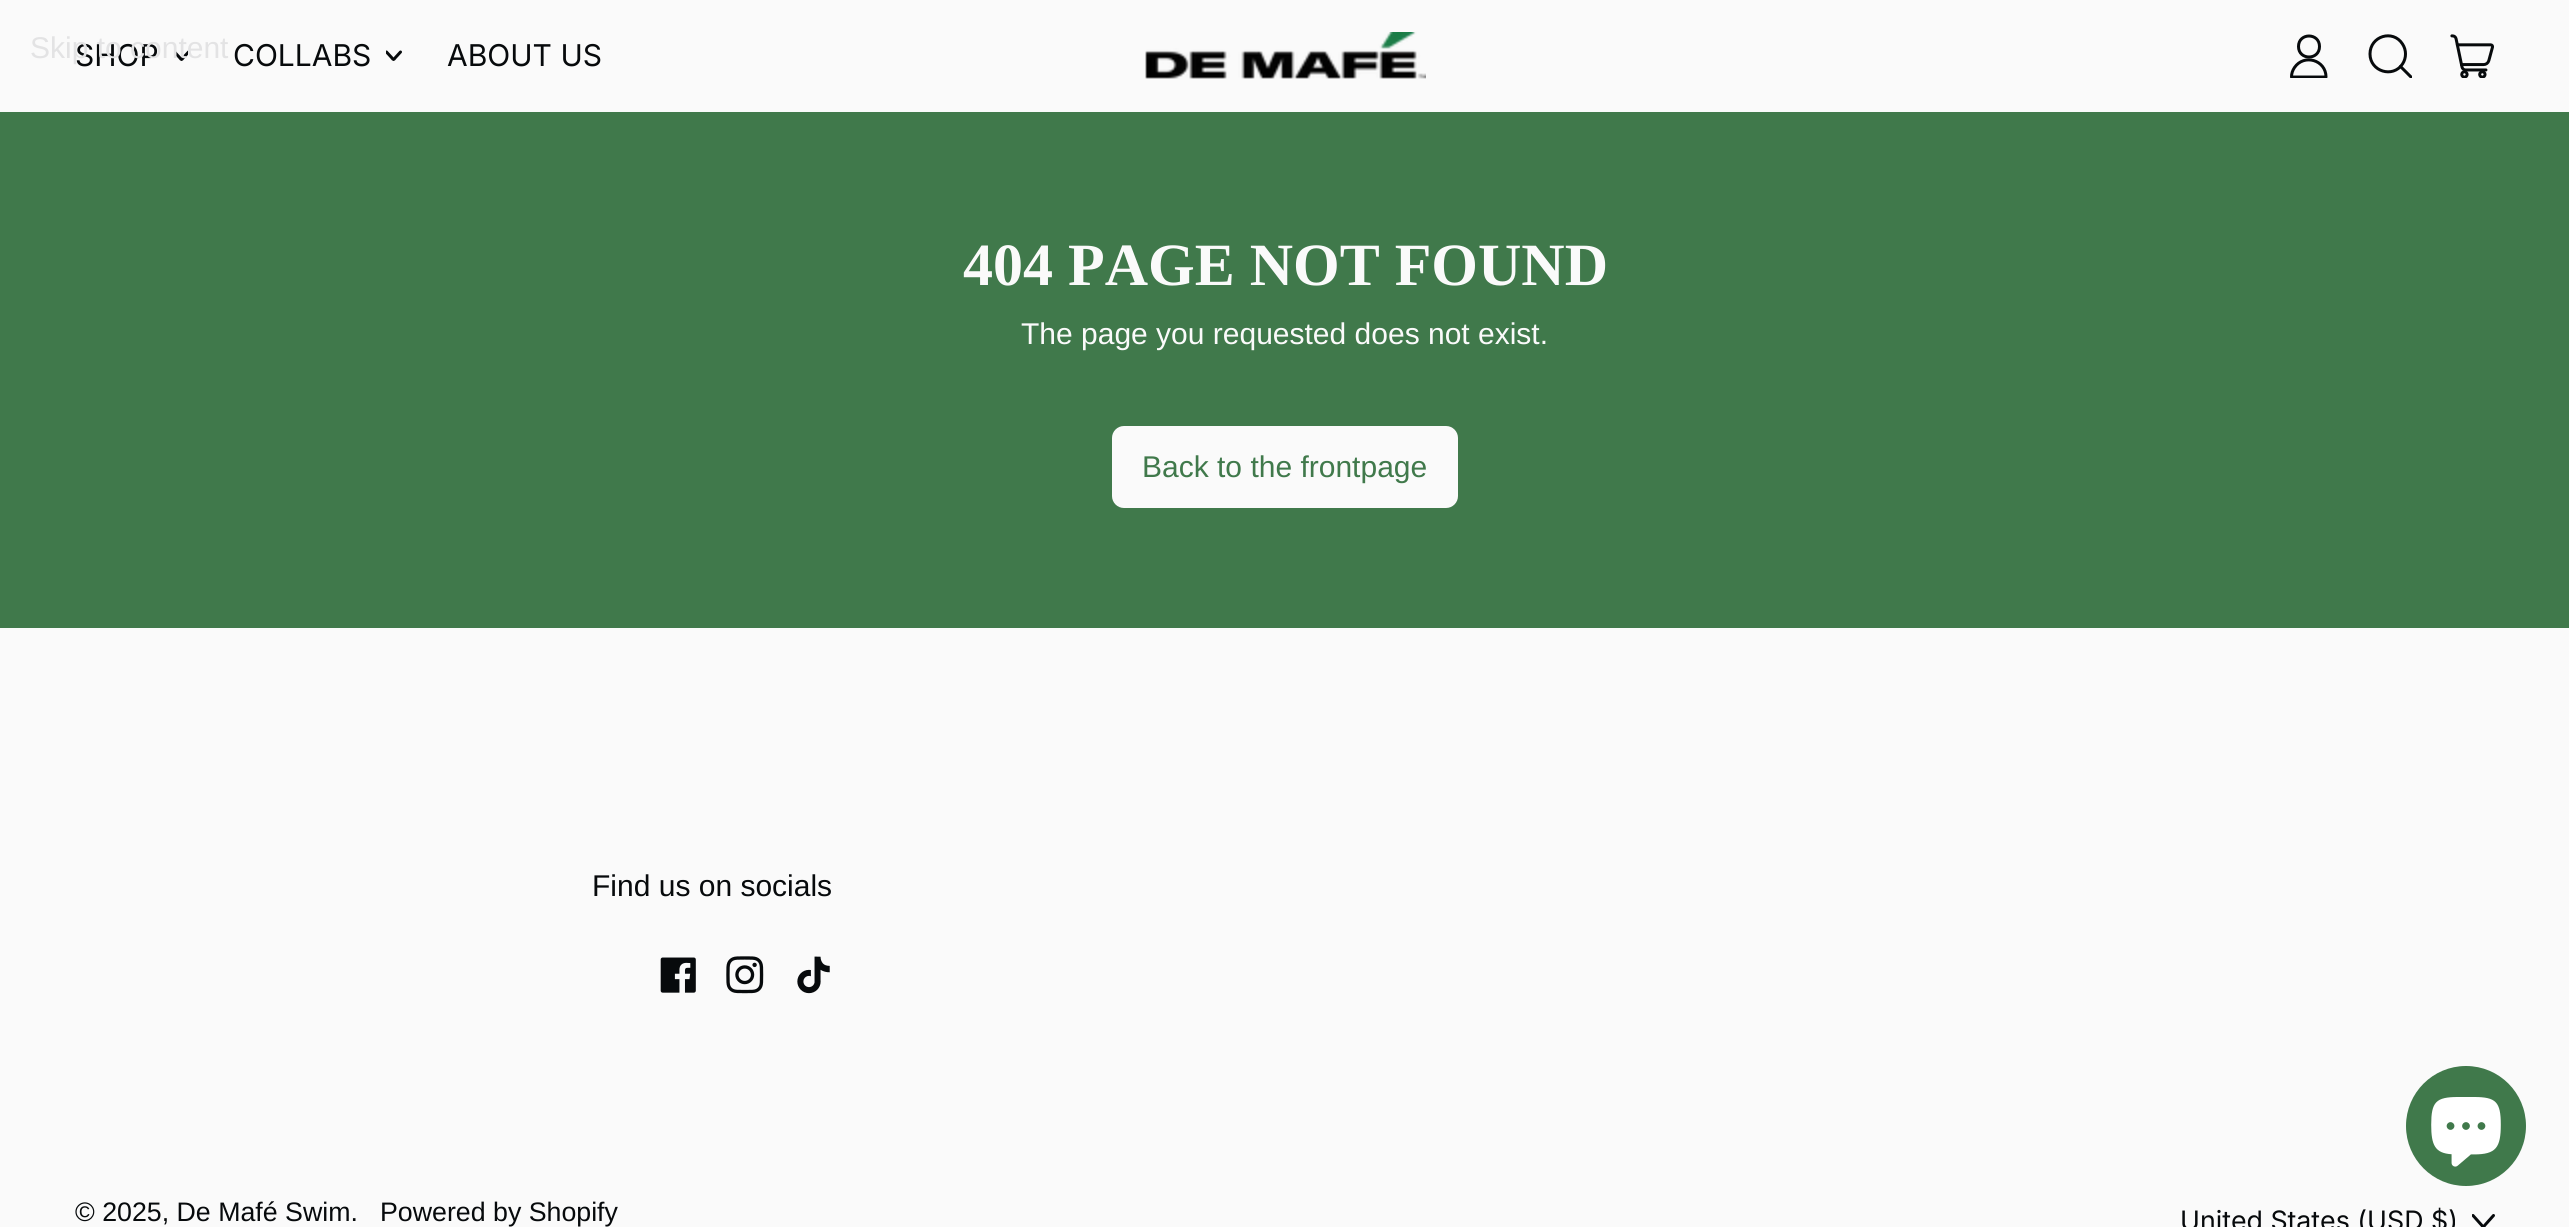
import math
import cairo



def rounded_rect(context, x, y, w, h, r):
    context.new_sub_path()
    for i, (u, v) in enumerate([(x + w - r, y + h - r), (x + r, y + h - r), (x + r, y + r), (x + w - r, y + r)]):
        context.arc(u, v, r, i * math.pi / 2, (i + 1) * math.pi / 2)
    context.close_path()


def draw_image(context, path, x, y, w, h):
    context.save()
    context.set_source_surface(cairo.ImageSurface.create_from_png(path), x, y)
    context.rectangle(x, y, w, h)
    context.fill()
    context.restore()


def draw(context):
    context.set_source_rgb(64 / 255, 121 / 255, 75 / 255)
    context.paint()
    context.set_source_rgb(250 / 255, 250 / 255, 250 / 255)
    context.rectangle(0, 0, 2569, 112)
    context.fill()
    context.save()
    context.rectangle(174, 48, 14, 16)
    context.clip()
    context.new_path()
    context.move_to(174.5, 52)
    context.line_to(180, 58)
    context.curve_to(181.5, 60, 181.5, 60, 183, 58)
    context.line_to(188.5, 52)
    context.set_source_rgb(7 / 255, 10 / 255, 12 / 255)
    context.set_line_width(3)
    context.set_line_cap(cairo.LineCap.ROUND)
    context.set_line_join(cairo.LineJoin.ROUND)
    context.stroke()
    context.restore()
    context.save()
    context.rectangle(386, 48, 16, 16)
    context.clip()
    context.new_path()
    context.move_to(386.5, 52)
    context.line_to(392, 58)
    context.curve_to(393.5, 60, 393.5, 60, 395, 58)
    context.line_to(400.5, 52)
    context.set_source_rgb(7 / 255, 10 / 255, 12 / 255)
    context.set_line_width(3)
    context.set_line_cap(cairo.LineCap.ROUND)
    context.set_line_join(cairo.LineJoin.ROUND)
    context.stroke()
    context.restore()
    draw_image(context, "images/1.png", 1145, 32, 281, 47)
    context.new_path()
    context.move_to(2298.5, 46.5)
    context.curve_to(2298.5, 60.5, 2319.5, 60.5, 2319.5, 46.5)
    context.curve_to(2319.5, 32.5, 2298.5, 32.5, 2298.5, 46.5)
    context.close_path()
    context.set_source_rgb(7 / 255, 10 / 255, 12 / 255)
    context.set_line_width(3)
    context.set_line_cap(cairo.LineCap.ROUND)
    context.set_line_join(cairo.LineJoin.ROUND)
    context.stroke()
    context.save()
    context.rectangle(2286, 34, 44, 44)
    context.clip()
    context.new_path()
    context.move_to(2291.5, 77)
    context.curve_to(2291.5, 73.5, 2292.5, 70.5, 2294.5, 67.5)
    context.curve_to(2304, 53.5, 2326, 60, 2326, 77)
    context.close_path()
    context.stroke()
    context.restore()
    context.new_path()
    context.move_to(2370, 54)
    context.curve_to(2370, 71.5, 2393, 78.5, 2402.5, 64)
    context.curve_to(2404.5, 61, 2405.5, 57.5, 2405.5, 54)
    context.curve_to(2405.5, 50.5, 2404.5, 47, 2402.5, 44)
    context.curve_to(2393, 29, 2370, 36, 2370, 54)
    context.close_path()
    context.stroke()
    context.save()
    context.rectangle(2368, 34, 44, 44)
    context.clip()
    context.new_path()
    context.move_to(2411, 77)
    context.line_to(2400.5, 66.5)
    context.stroke()
    context.restore()
    draw_image(context, "images/2.png", 2450, 34, 44, 44)
    context.set_source_rgb(250 / 255, 250 / 255, 250 / 255)
    rounded_rect(context, 1112, 426, 346, 82, 12)
    context.fill()
    context.rectangle(0, 628, 2569, 599)
    context.fill()
    draw_image(context, "images/3.png", 660, 957, 36, 36)
    draw_image(context, "images/4.png", 726, 956, 38, 38)
    draw_image(context, "images/5.png", 797, 956, 33, 38)
    context.save()
    context.rectangle(2472, 1210, 24, 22)
    context.clip()
    context.new_path()
    context.move_to(2473, 1215.5)
    context.line_to(2481.5, 1225)
    context.curve_to(2483.5, 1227.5, 2483, 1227.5, 2485, 1225)
    context.line_to(2493.5, 1215.5)
    context.set_source_rgb(7 / 255, 10 / 255, 12 / 255)
    context.stroke()
    context.restore()
    context.set_source_rgb(64 / 255, 121 / 255, 75 / 255)
    context.arc(2466, 1126, 60, 0, 2 * math.pi)
    context.fill()
    draw_image(context, "images/6.png", 2431, 1097, 70, 70)
    context.select_font_face("Inter")
    context.set_font_size(30)
    context.set_source_rgb(7 / 255, 10 / 255, 12 / 255)
    context.move_to(75, 66)
    context.show_text("SHOP")
    context.select_font_face("Liberation Sans")
    context.set_source_rgb(227 / 255, 227 / 255, 228 / 255)
    context.move_to(30, 58)
    context.show_text("Skip to content")
    context.select_font_face("Inter")
    context.set_source_rgb(7 / 255, 10 / 255, 12 / 255)
    context.move_to(233, 66)
    context.show_text("COLLABS")
    context.move_to(447, 66)
    context.show_text("ABOUT US")
    context.select_font_face("Liberation Serif", cairo.FontSlant.NORMAL, cairo.FontWeight.BOLD)
    context.set_font_size(60)
    context.set_source_rgb(250 / 255, 250 / 255, 250 / 255)
    context.move_to(963, 285)
    context.show_text("404 PAGE NOT FOUND")
    context.select_font_face("Liberation Sans")
    context.set_font_size(30)
    context.move_to(1021, 344)
    context.show_text("The page you requested does not exist.")
    context.set_source_rgb(64 / 255, 121 / 255, 75 / 255)
    context.move_to(1142, 477)
    context.show_text("Back to the frontpage")
    context.set_source_rgb(7 / 255, 10 / 255, 12 / 255)
    context.move_to(592, 896)
    context.show_text("Find us on socials")
    context.set_font_size(26.75)
    context.move_to(75, 1221)
    context.show_text("© 2025, De Mafé Swim.")
    context.move_to(380, 1221)
    context.show_text("Powered by Shopify")
    context.select_font_face("Inter")
    context.move_to(2180, 1230)
    context.show_text("United States (USD $)")


surface = cairo.ImageSurface(cairo.Format.RGB24, 2569, 1227)
context = cairo.Context(surface)
options = cairo.FontOptions()
options.set_hint_metrics(cairo.HintMetrics.OFF)
options.set_hint_style(cairo.HintStyle.NONE)
context.set_font_options(options)
context.set_miter_limit(4)
draw(context)
surface.write_to_png("out.png")
